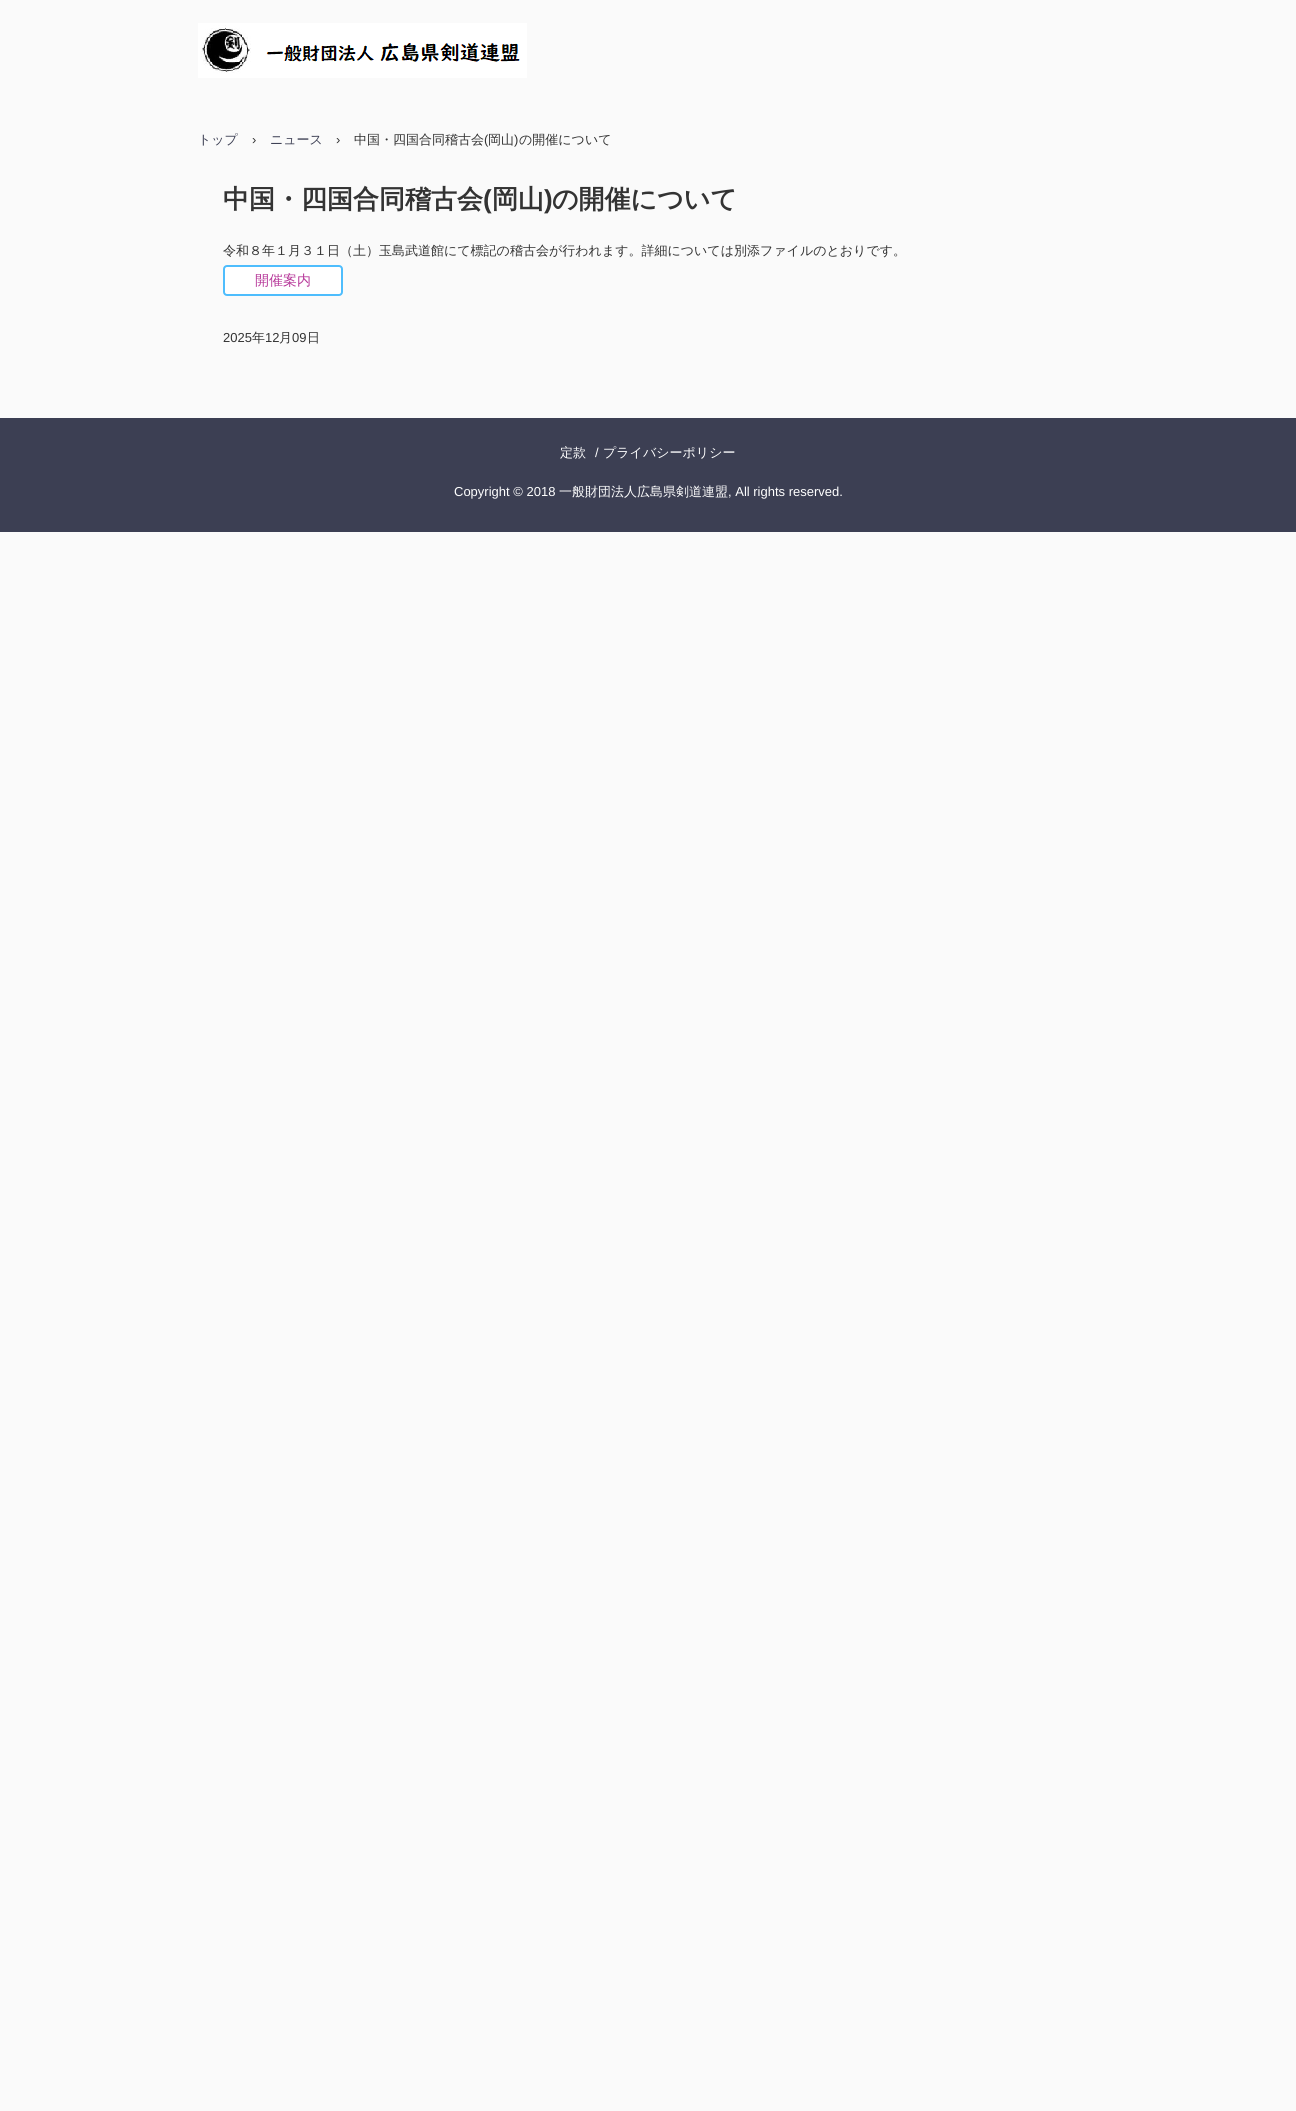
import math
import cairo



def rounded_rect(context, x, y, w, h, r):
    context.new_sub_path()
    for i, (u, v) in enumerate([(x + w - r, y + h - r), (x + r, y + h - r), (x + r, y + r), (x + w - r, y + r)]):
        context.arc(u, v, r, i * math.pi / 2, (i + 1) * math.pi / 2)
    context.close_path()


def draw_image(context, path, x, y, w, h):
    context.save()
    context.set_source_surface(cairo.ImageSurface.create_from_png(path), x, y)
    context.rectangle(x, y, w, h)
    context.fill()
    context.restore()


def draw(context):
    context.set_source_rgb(250 / 255, 250 / 255, 250 / 255)
    context.paint()
    draw_image(context, "images/1.png", 198, 23, 329, 55)
    context.set_source_rgb(1, 1, 1)
    rounded_rect(context, 224, 266, 118, 29, 3)
    context.fill_preserve()
    context.set_source_rgb(78 / 255, 189 / 255, 253 / 255)
    context.stroke()
    context.set_source_rgb(60 / 255, 63 / 255, 83 / 255)
    context.rectangle(0, 418, 1296, 114)
    context.fill()
    context.select_font_face("WenQuanYi Zen Hei Medium")
    context.set_font_size(13)
    context.move_to(198, 144)
    context.show_text("トップ")
    context.select_font_face("Liberation Sans")
    context.set_source_rgb(51 / 255, 51 / 255, 51 / 255)
    context.move_to(252, 144)
    context.show_text("›")
    context.select_font_face("WenQuanYi Zen Hei Medium")
    context.set_source_rgb(60 / 255, 63 / 255, 83 / 255)
    context.move_to(270, 144)
    context.show_text("ニュース")
    context.select_font_face("Liberation Sans")
    context.set_source_rgb(51 / 255, 51 / 255, 51 / 255)
    context.move_to(336, 144)
    context.show_text("›")
    context.select_font_face("WenQuanYi Zen Hei Medium")
    context.move_to(354, 144)
    context.show_text("中国・四国合同稽古会")
    context.select_font_face("Liberation Sans")
    context.move_to(484, 144)
    context.show_text("(")
    context.select_font_face("WenQuanYi Zen Hei Medium")
    context.move_to(488, 144)
    context.show_text("岡山")
    context.select_font_face("Liberation Sans")
    context.move_to(514, 144)
    context.show_text(")")
    context.select_font_face("WenQuanYi Zen Hei Medium")
    context.move_to(519, 144)
    context.show_text("の開催について")
    context.select_font_face("WenQuanYi Zen Hei", cairo.FontSlant.NORMAL, cairo.FontWeight.BOLD)
    context.set_font_size(26)
    context.move_to(223, 208)
    context.show_text("中国・四国合同稽古会")
    context.select_font_face("Liberation Sans", cairo.FontSlant.NORMAL, cairo.FontWeight.BOLD)
    context.move_to(483, 208)
    context.show_text("(")
    context.select_font_face("WenQuanYi Zen Hei", cairo.FontSlant.NORMAL, cairo.FontWeight.BOLD)
    context.move_to(492, 208)
    context.show_text("岡山")
    context.select_font_face("Liberation Sans", cairo.FontSlant.NORMAL, cairo.FontWeight.BOLD)
    context.move_to(544, 208)
    context.show_text(")")
    context.select_font_face("WenQuanYi Zen Hei", cairo.FontSlant.NORMAL, cairo.FontWeight.BOLD)
    context.move_to(552, 208)
    context.show_text("の開催について")
    context.select_font_face("WenQuanYi Zen Hei Medium")
    context.set_font_size(13)
    context.move_to(223, 255)
    context.show_text("令和８年１月３１日（土）玉島武道館にて標記の稽古会が行われます。詳細については別添ファイルのとおりです。")
    context.set_font_size(14)
    context.set_source_rgb(183 / 255, 57 / 255, 154 / 255)
    context.move_to(255, 285)
    context.show_text("開催案内")
    context.select_font_face("Liberation Sans")
    context.set_font_size(13)
    context.set_source_rgb(51 / 255, 51 / 255, 51 / 255)
    context.move_to(223, 342)
    context.show_text("2025")
    context.select_font_face("WenQuanYi Zen Hei Medium")
    context.move_to(252, 342)
    context.show_text("年")
    context.select_font_face("Liberation Sans")
    context.move_to(265, 342)
    context.show_text("12")
    context.select_font_face("WenQuanYi Zen Hei Medium")
    context.move_to(279, 342)
    context.show_text("月")
    context.select_font_face("Liberation Sans")
    context.move_to(292, 342)
    context.show_text("09")
    context.select_font_face("WenQuanYi Zen Hei Medium")
    context.move_to(307, 342)
    context.show_text("日")
    context.set_source_rgb(1, 1, 1)
    context.move_to(560, 457)
    context.show_text("定款")
    context.select_font_face("Liberation Sans")
    context.move_to(595, 457)
    context.show_text("/")
    context.select_font_face("WenQuanYi Zen Hei Medium")
    context.move_to(603, 457)
    context.show_text("プライバシーポリシー")
    context.select_font_face("Liberation Sans")
    context.move_to(454, 496)
    context.show_text("Copyright © 2018")
    context.select_font_face("WenQuanYi Zen Hei Medium")
    context.move_to(559, 496)
    context.show_text("一般財団法人広島県剣道連盟")
    context.select_font_face("Liberation Sans")
    context.move_to(728, 496)
    context.show_text(", All rights reserved.")


surface = cairo.ImageSurface(cairo.Format.RGB24, 1296, 2111)
context = cairo.Context(surface)
options = cairo.FontOptions()
options.set_hint_metrics(cairo.HintMetrics.OFF)
options.set_hint_style(cairo.HintStyle.NONE)
context.set_font_options(options)
context.set_miter_limit(4)
draw(context)
surface.write_to_png("out.png")
